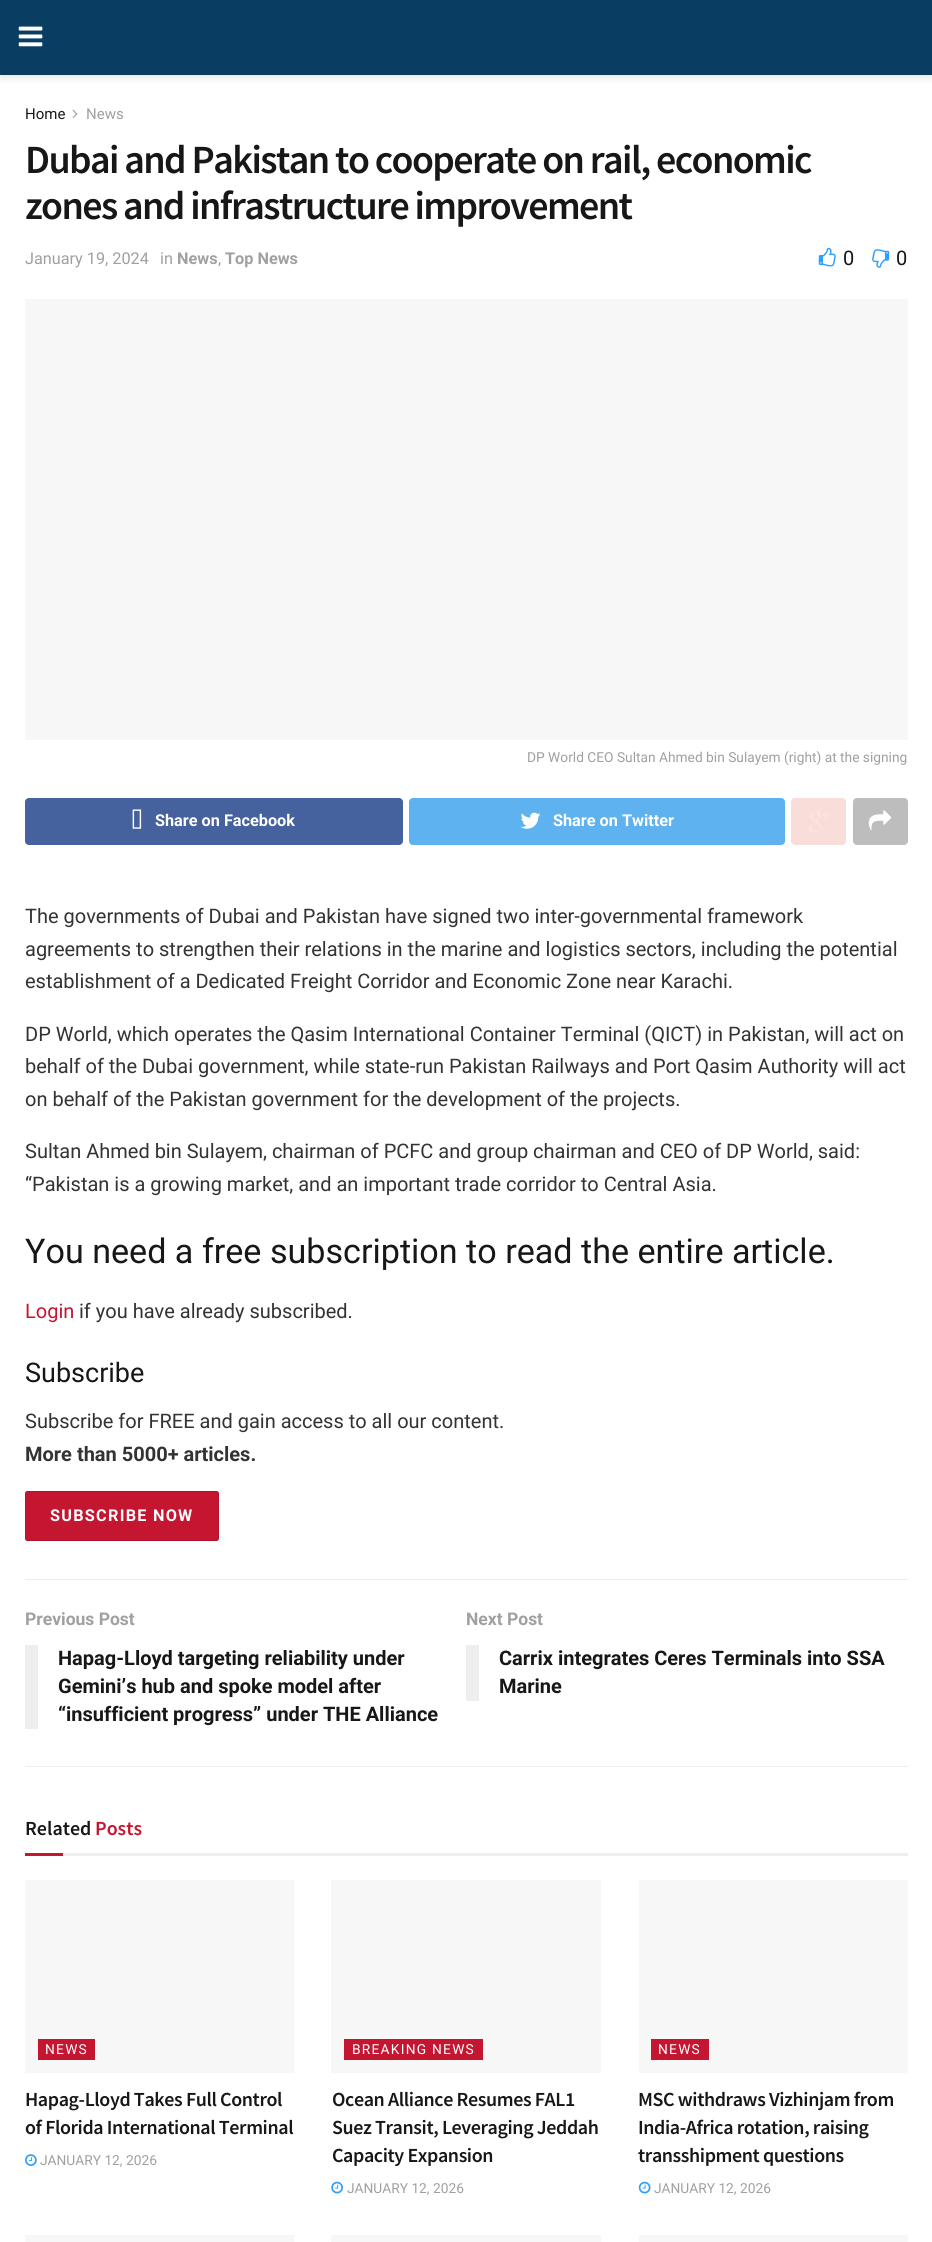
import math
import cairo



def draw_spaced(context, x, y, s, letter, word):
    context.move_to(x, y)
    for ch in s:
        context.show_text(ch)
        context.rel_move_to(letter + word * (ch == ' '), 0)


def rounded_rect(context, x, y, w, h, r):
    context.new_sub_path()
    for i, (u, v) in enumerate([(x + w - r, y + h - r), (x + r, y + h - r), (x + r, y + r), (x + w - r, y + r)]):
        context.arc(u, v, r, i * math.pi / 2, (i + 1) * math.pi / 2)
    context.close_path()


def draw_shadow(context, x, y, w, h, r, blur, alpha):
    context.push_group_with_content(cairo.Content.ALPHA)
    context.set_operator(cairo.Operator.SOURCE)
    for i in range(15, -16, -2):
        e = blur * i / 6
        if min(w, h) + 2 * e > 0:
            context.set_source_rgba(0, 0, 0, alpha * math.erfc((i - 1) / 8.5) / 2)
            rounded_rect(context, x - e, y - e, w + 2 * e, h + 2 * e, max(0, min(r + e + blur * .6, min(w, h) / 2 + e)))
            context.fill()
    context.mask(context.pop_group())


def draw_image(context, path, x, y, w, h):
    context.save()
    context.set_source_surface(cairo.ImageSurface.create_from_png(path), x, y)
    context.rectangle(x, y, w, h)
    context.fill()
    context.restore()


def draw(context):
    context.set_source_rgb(1, 1, 1)
    context.paint()
    context.set_source_rgb(0, 0, 0)
    draw_shadow(context, 0, 3, 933, 75, 0, 4, 0.1)
    context.set_source_rgb(10 / 255, 61 / 255, 98 / 255)
    context.rectangle(0, 0, 932, 75)
    context.fill()
    draw_image(context, "images/1.png", 18, 26, 25, 21)
    draw_image(context, "images/2.png", 72, 109, 6, 9)
    draw_image(context, "images/3.png", 818, 247, 18, 20)
    draw_image(context, "images/4.png", 872, 249, 18, 19)
    context.set_source_rgb(247 / 255, 247 / 255, 247 / 255)
    context.rectangle(25, 299, 883, 441)
    context.fill()
    context.set_source_rgb(69 / 255, 98 / 255, 159 / 255)
    rounded_rect(context, 25, 798, 378, 47, 4)
    context.fill()
    draw_image(context, "images/5.png", 132, 809, 10, 20)
    context.set_source_rgb(94 / 255, 178 / 255, 239 / 255)
    rounded_rect(context, 409, 798, 376, 47, 4)
    context.fill()
    draw_image(context, "images/6.png", 520, 812, 21, 17)
    context.set_source_rgb(249 / 255, 221 / 255, 217 / 255)
    rounded_rect(context, 791, 798, 55, 47, 4)
    context.fill()
    draw_image(context, "images/7.png", 809, 811, 21, 21)
    context.set_source_rgb(189 / 255, 189 / 255, 189 / 255)
    rounded_rect(context, 853, 798, 55, 47, 4)
    context.fill()
    draw_image(context, "images/8.png", 868, 810, 24, 21)
    context.set_source_rgb(196 / 255, 22 / 255, 48 / 255)
    rounded_rect(context, 25, 1491, 194, 50, 2.5)
    context.fill()
    rounded_rect(context, 25.5, 1491.5, 193, 49, 2)
    context.set_source_rgba(0, 0, 0, 0.1)
    context.set_line_width(1)
    context.stroke()
    context.set_source_rgb(238 / 255, 238 / 255, 238 / 255)
    context.rectangle(25, 1579, 883, 1)
    context.fill()
    context.rectangle(25, 1766, 883, 1)
    context.fill()
    context.rectangle(25, 1645, 13, 84)
    context.fill()
    context.rectangle(466, 1645, 13, 56)
    context.fill()
    context.rectangle(63, 1853, 845, 3)
    context.fill()
    context.set_source_rgb(196 / 255, 22 / 255, 48 / 255)
    context.rectangle(25, 1853, 38, 3)
    context.fill()
    context.set_source_rgb(247 / 255, 247 / 255, 247 / 255)
    context.rectangle(25, 1880, 269, 193)
    context.fill()
    context.set_source_rgb(196 / 255, 22 / 255, 48 / 255)
    context.rectangle(38, 2039, 57, 21)
    context.fill()
    draw_image(context, "images/9.png", 25, 2154, 12, 12)
    context.set_source_rgb(247 / 255, 247 / 255, 247 / 255)
    context.rectangle(331, 1880, 270, 193)
    context.fill()
    context.set_source_rgb(196 / 255, 22 / 255, 48 / 255)
    context.rectangle(344, 2039, 139, 21)
    context.fill()
    draw_image(context, "images/10.png", 331, 2181, 12, 13)
    context.set_source_rgb(247 / 255, 247 / 255, 247 / 255)
    context.rectangle(639, 1880, 269, 193)
    context.fill()
    context.set_source_rgb(196 / 255, 22 / 255, 48 / 255)
    context.rectangle(651, 2039, 58, 21)
    context.fill()
    draw_image(context, "images/11.png", 638, 2181, 13, 13)
    context.set_source_rgb(247 / 255, 247 / 255, 247 / 255)
    context.rectangle(25, 2235, 269, 7)
    context.fill()
    context.rectangle(331, 2235, 270, 7)
    context.fill()
    context.rectangle(639, 2235, 269, 7)
    context.fill()
    context.select_font_face("Roboto")
    context.set_font_size(15)
    context.set_source_rgb(23 / 255, 23 / 255, 23 / 255)
    context.move_to(25, 119)
    context.show_text("Home")
    context.set_source_rgb(160 / 255, 160 / 255, 160 / 255)
    context.move_to(86, 119)
    context.show_text("News")
    context.select_font_face("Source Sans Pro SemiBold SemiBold")
    context.set_font_size(40)
    context.set_source_rgb(23 / 255, 23 / 255, 23 / 255)
    draw_spaced(context, 25, 173, "Dubai and Pakistan to cooperate on rail, economic", -1.6, 0)
    draw_spaced(context, 25, 219, "zones and infrastructure improvement", -1.6, 0)
    context.select_font_face("Roboto")
    context.set_font_size(16.25)
    context.set_source_rgb(160 / 255, 160 / 255, 160 / 255)
    context.move_to(25, 264)
    context.show_text("January 19, 2024")
    context.move_to(160, 264)
    context.show_text("in")
    context.select_font_face("Roboto", cairo.FontSlant.NORMAL, cairo.FontWeight.BOLD)
    context.move_to(177, 264)
    context.show_text("News")
    context.select_font_face("Roboto")
    context.move_to(218, 264)
    context.show_text(",")
    context.select_font_face("Roboto", cairo.FontSlant.NORMAL, cairo.FontWeight.BOLD)
    context.move_to(225, 264)
    context.show_text("Top News")
    context.select_font_face("Roboto")
    context.set_font_size(20)
    context.set_source_rgb(23 / 255, 23 / 255, 23 / 255)
    context.move_to(843, 265)
    context.show_text("0")
    context.move_to(896, 265)
    context.show_text("0")
    context.set_font_size(13.75)
    context.set_source_rgb(160 / 255, 160 / 255, 160 / 255)
    context.move_to(527, 762)
    context.show_text("DP World CEO Sultan Ahmed bin Sulayem (right) at the signing")
    context.select_font_face("Roboto", cairo.FontSlant.NORMAL, cairo.FontWeight.BOLD)
    context.set_font_size(16.25)
    context.set_source_rgb(1, 1, 1)
    context.move_to(155, 826)
    context.show_text("Share on Facebook")
    context.move_to(553, 826)
    context.show_text("Share on Twitter")
    context.select_font_face("Roboto")
    context.set_font_size(20)
    context.set_source_rgb(51 / 255, 51 / 255, 51 / 255)
    context.move_to(25, 923)
    context.show_text("The governments of Dubai and Pakistan have signed two inter-governmental framework")
    context.move_to(25, 956)
    context.show_text("agreements to strengthen their relations in the marine and logistics sectors, including the potential")
    context.move_to(25, 988)
    context.show_text("establishment of a Dedicated Freight Corridor and Economic Zone near Karachi.")
    context.move_to(25, 1041)
    context.show_text("DP World, which operates the Qasim International Container Terminal (QICT) in Pakistan, will act on")
    context.move_to(25, 1073)
    context.show_text("behalf of the Dubai government, while state-run Pakistan Railways and Port Qasim Authority will act")
    context.move_to(25, 1106)
    context.show_text("on behalf of the Pakistan government for the development of the projects.")
    context.move_to(25, 1158)
    context.show_text("Sultan Ahmed bin Sulayem, chairman of PCFC and group chairman and CEO of DP World, said:")
    context.move_to(25, 1191)
    context.show_text("“Pakistan is a growing market, and an important trade corridor to Central Asia.")
    context.set_font_size(34.1)
    context.set_source_rgb(23 / 255, 23 / 255, 23 / 255)
    context.move_to(25, 1263)
    context.show_text("You need a free subscription to read the entire article.")
    context.set_font_size(20)
    context.set_source_rgb(196 / 255, 22 / 255, 48 / 255)
    context.move_to(25, 1318)
    context.show_text("Login")
    context.set_source_rgb(51 / 255, 51 / 255, 51 / 255)
    context.move_to(79, 1318)
    context.show_text("if you have already subscribed.")
    context.set_font_size(27)
    context.set_source_rgb(23 / 255, 23 / 255, 23 / 255)
    context.move_to(25, 1382)
    context.show_text("Subscribe")
    context.set_font_size(20)
    context.set_source_rgb(51 / 255, 51 / 255, 51 / 255)
    context.move_to(25, 1428)
    context.show_text("Subscribe for FREE and gain access to all our content.")
    context.select_font_face("Roboto", cairo.FontSlant.NORMAL, cairo.FontWeight.BOLD)
    context.move_to(25, 1461)
    context.show_text("More than 5000+ articles.")
    context.set_font_size(16.25)
    context.set_source_rgb(1, 1, 1)
    draw_spaced(context, 50, 1521, "SUBSCRIBE NOW", 1.25, 0)
    context.set_font_size(17.5)
    context.set_source_rgb(160 / 255, 160 / 255, 160 / 255)
    context.move_to(25, 1625)
    context.show_text("Previous Post")
    context.set_font_size(20)
    context.set_source_rgb(23 / 255, 23 / 255, 23 / 255)
    context.move_to(58, 1665)
    context.show_text("Hapag-Lloyd targeting reliability under")
    context.move_to(58, 1693)
    context.show_text("Gemini’s hub and spoke model after")
    context.move_to(58, 1721)
    context.show_text("“insufficient progress” under THE Alliance")
    context.set_font_size(17.5)
    context.set_source_rgb(160 / 255, 160 / 255, 160 / 255)
    context.move_to(466, 1625)
    context.show_text("Next Post")
    context.set_font_size(20)
    context.set_source_rgb(23 / 255, 23 / 255, 23 / 255)
    context.move_to(499, 1665)
    context.show_text("Carrix integrates Ceres Terminals into SSA")
    context.move_to(499, 1693)
    context.show_text("Marine")
    context.select_font_face("Source Sans Pro SemiBold SemiBold")
    context.move_to(25, 1835)
    context.show_text("Related")
    context.set_source_rgb(196 / 255, 22 / 255, 48 / 255)
    context.move_to(95, 1835)
    context.show_text("Posts")
    context.select_font_face("Roboto")
    context.set_font_size(13.75)
    context.set_source_rgb(1, 1, 1)
    draw_spaced(context, 45, 2054, "NEWS", 1.25, 0)
    context.select_font_face("Source Sans Pro SemiBold SemiBold")
    context.set_font_size(20)
    context.set_source_rgb(23 / 255, 23 / 255, 23 / 255)
    draw_spaced(context, 25, 2106, "Hapag-Lloyd Takes Full Control", -0.4, 0)
    draw_spaced(context, 25, 2134, "of Florida International Terminal", -0.4, 0)
    context.select_font_face("Roboto")
    context.set_font_size(13.75)
    context.set_source_rgb(160 / 255, 160 / 255, 160 / 255)
    context.move_to(40, 2165)
    context.show_text("JANUARY 12, 2026")
    context.set_source_rgb(1, 1, 1)
    draw_spaced(context, 352, 2054, "BREAKING NEWS", 1.25, 0)
    context.select_font_face("Source Sans Pro SemiBold SemiBold")
    context.set_font_size(20)
    context.set_source_rgb(23 / 255, 23 / 255, 23 / 255)
    draw_spaced(context, 332, 2106, "Ocean Alliance Resumes FAL1", -0.4, 0)
    draw_spaced(context, 332, 2134, "Suez Transit, Leveraging Jeddah", -0.4, 0)
    draw_spaced(context, 332, 2162, "Capacity Expansion", -0.4, 0)
    context.select_font_face("Roboto")
    context.set_font_size(13.75)
    context.set_source_rgb(160 / 255, 160 / 255, 160 / 255)
    context.move_to(347, 2193)
    context.show_text("JANUARY 12, 2026")
    context.set_source_rgb(1, 1, 1)
    draw_spaced(context, 658, 2054, "NEWS", 1.25, 0)
    context.select_font_face("Source Sans Pro SemiBold SemiBold")
    context.set_font_size(20)
    context.set_source_rgb(23 / 255, 23 / 255, 23 / 255)
    draw_spaced(context, 638, 2106, "MSC withdraws Vizhinjam from", -0.4, 0)
    draw_spaced(context, 638, 2134, "India-Africa rotation, raising", -0.4, 0)
    draw_spaced(context, 638, 2162, "transshipment questions", -0.4, 0)
    context.select_font_face("Roboto")
    context.set_font_size(13.75)
    context.set_source_rgb(160 / 255, 160 / 255, 160 / 255)
    context.move_to(654, 2193)
    context.show_text("JANUARY 12, 2026")


surface = cairo.ImageSurface(cairo.Format.RGB24, 932, 2242)
context = cairo.Context(surface)
options = cairo.FontOptions()
options.set_hint_metrics(cairo.HintMetrics.OFF)
options.set_hint_style(cairo.HintStyle.NONE)
context.set_font_options(options)
context.set_miter_limit(4)
draw(context)
surface.write_to_png("out.png")
